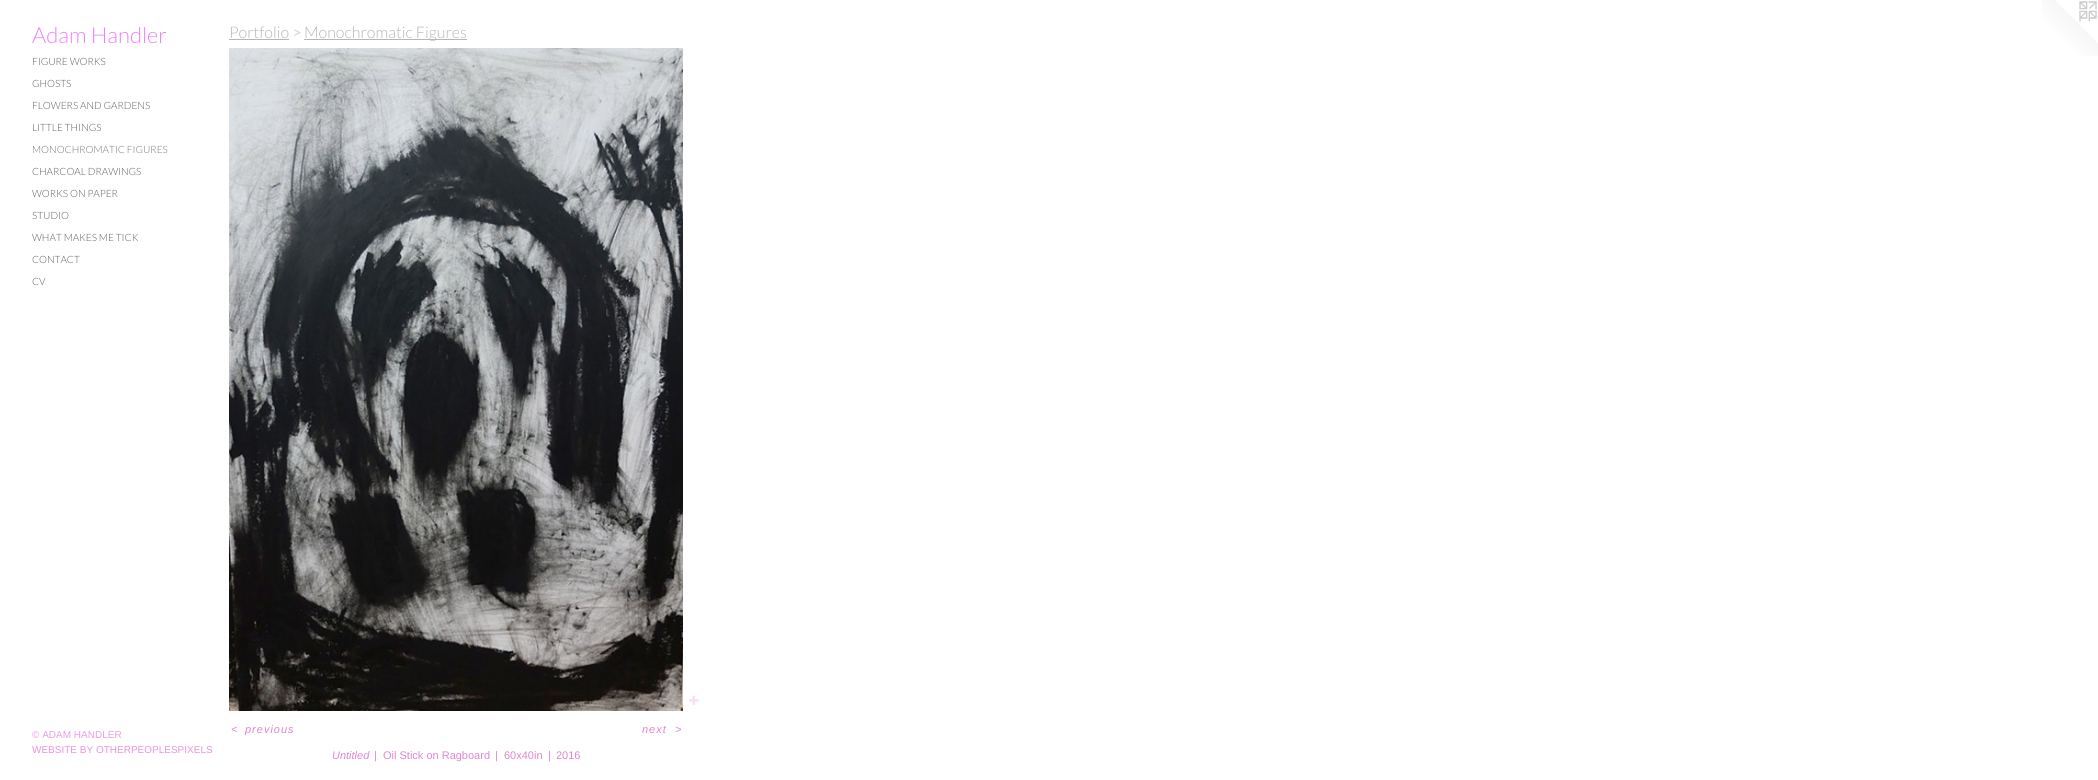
import math
import cairo



def draw_spaced(context, x, y, s, letter, word):
    context.move_to(x, y)
    for ch in s:
        context.show_text(ch)
        context.rel_move_to(letter + word * (ch == ' '), 0)


def draw_image(context, path, x, y, w, h):
    context.save()
    context.set_source_surface(cairo.ImageSurface.create_from_png(path), x, y)
    context.rectangle(x, y, w, h)
    context.fill()
    context.restore()


def draw(context):
    context.set_source_rgb(1, 1, 1)
    context.paint()
    context.set_source_rgb(181 / 255, 181 / 255, 181 / 255)
    context.rectangle(229, 39, 60, 1)
    context.fill()
    context.rectangle(304, 39, 163, 1)
    context.fill()
    draw_image(context, "images/1.png", 229, 48, 454, 663)
    draw_image(context, "images/2.png", 689, 695, 10, 10)
    draw_image(context, "images/3.png", 2042, 0, 56, 56)
    context.select_font_face("Lato Light")
    context.set_font_size(22)
    context.set_source_rgb(237 / 255, 128 / 255, 1)
    context.move_to(32, 43)
    context.show_text("Adam Handler")
    context.set_font_size(10)
    context.set_source_rgb(92 / 255, 92 / 255, 92 / 255)
    context.move_to(32, 65)
    context.show_text("FIGURE WORKS")
    context.move_to(32, 87)
    context.show_text("GHOSTS")
    context.move_to(32, 109)
    context.show_text("FLOWERS AND GARDENS")
    context.move_to(32, 131)
    context.show_text("LITTLE THINGS")
    context.set_source_rgb(118 / 255, 118 / 255, 118 / 255)
    context.move_to(32, 153)
    context.show_text("MONOCHROMATIC FIGURES")
    context.set_source_rgb(92 / 255, 92 / 255, 92 / 255)
    context.move_to(32, 175)
    context.show_text("CHARCOAL DRAWINGS")
    context.move_to(32, 197)
    context.show_text("WORKS ON PAPER")
    context.move_to(32, 219)
    context.show_text("STUDIO")
    context.move_to(32, 241)
    context.show_text("WHAT MAKES ME TICK")
    context.move_to(32, 263)
    context.show_text("CONTACT")
    context.move_to(32, 285)
    context.show_text("CV")
    context.select_font_face("Liberation Sans")
    context.set_source_rgb(233 / 255, 159 / 255, 227 / 255)
    context.move_to(32, 738)
    context.show_text("© ADAM HANDLER")
    context.set_source_rgb(233 / 255, 149 / 255, 219 / 255)
    context.move_to(32, 753)
    context.show_text("WEBSITE BY OTHERPEOPLESPIXELS")
    context.select_font_face("Lato Light")
    context.set_font_size(16)
    context.set_source_rgb(181 / 255, 181 / 255, 181 / 255)
    context.move_to(229, 38)
    context.show_text("Portfolio >")
    context.move_to(304, 38)
    context.show_text("Monochromatic Figures")
    context.select_font_face("Liberation Sans", cairo.FontSlant.ITALIC)
    context.set_font_size(11)
    context.set_source_rgb(224 / 255, 133 / 255, 210 / 255)
    draw_spaced(context, 231, 733, "<", 1, 0)
    draw_spaced(context, 245, 733, "previous", 1, 0)
    draw_spaced(context, 642, 733, "next", 1, 0)
    draw_spaced(context, 675, 733, ">", 1, 0)
    context.move_to(332, 759)
    context.show_text("Untitled")
    context.select_font_face("Liberation Sans")
    context.move_to(374, 759)
    context.show_text("|")
    context.move_to(383, 759)
    context.show_text("Oil Stick on Ragboard")
    context.move_to(495, 759)
    context.show_text("|")
    context.move_to(504, 759)
    context.show_text("60x40in")
    context.move_to(548, 759)
    context.show_text("|")
    context.move_to(556, 759)
    context.show_text("2016")


surface = cairo.ImageSurface(cairo.Format.RGB24, 2098, 780)
context = cairo.Context(surface)
options = cairo.FontOptions()
options.set_hint_metrics(cairo.HintMetrics.OFF)
options.set_hint_style(cairo.HintStyle.NONE)
context.set_font_options(options)
context.set_miter_limit(4)
draw(context)
surface.write_to_png("out.png")
